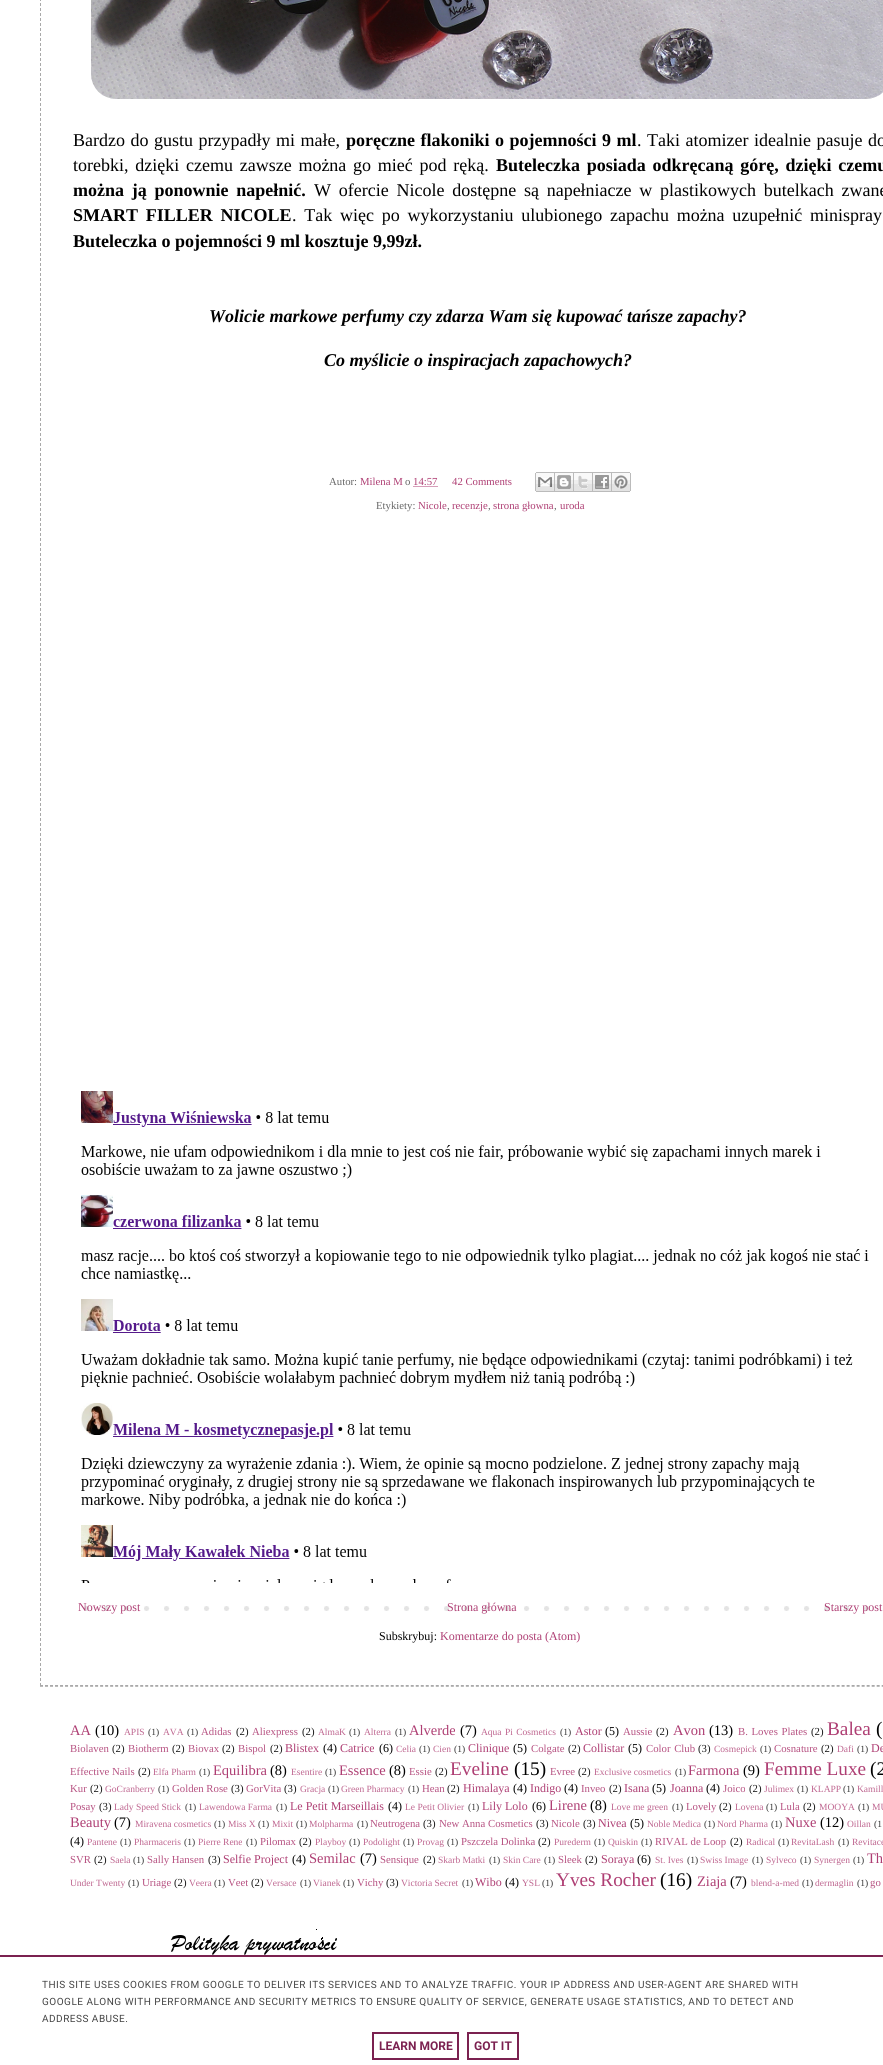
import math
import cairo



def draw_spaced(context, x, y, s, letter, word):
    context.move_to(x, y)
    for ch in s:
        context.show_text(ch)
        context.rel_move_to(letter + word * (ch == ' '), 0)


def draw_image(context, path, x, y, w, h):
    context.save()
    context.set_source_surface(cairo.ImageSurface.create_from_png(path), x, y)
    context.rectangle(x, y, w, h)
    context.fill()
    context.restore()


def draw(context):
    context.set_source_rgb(1, 1, 1)
    context.paint()
    context.new_path()
    context.move_to(40, 1685.5)
    context.line_to(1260, 1685.5)
    context.set_source_rgb(169 / 255, 169 / 255, 169 / 255)
    context.set_line_width(1)
    context.set_dash([3, 2.01])
    context.stroke()
    context.new_path()
    context.move_to(40.5, -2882)
    context.line_to(40.5, 1686)
    context.set_dash([3, 2])
    context.stroke()
    draw_image(context, "images/1.png", 91, 0, 792, 99)
    context.new_path()
    context.move_to(413.5, 486.5)
    context.line_to(438, 486.5)
    context.set_source_rgb(174 / 255, 62 / 255, 115 / 255)
    context.set_dash([1, 1])
    context.stroke()
    draw_image(context, "images/2.png", 535, 472, 20, 20)
    draw_image(context, "images/3.png", 555, 472, 19, 20)
    draw_image(context, "images/4.png", 574, 472, 19, 20)
    draw_image(context, "images/5.png", 593, 472, 19, 20)
    draw_image(context, "images/6.png", 612, 472, 19, 20)
    draw_image(context, "images/7.png", 81, 1091, 788, 492)
    draw_image(context, "images/8.png", 84, 1606, 785, 5)
    context.new_path()
    context.move_to(40, 1686.5)
    context.line_to(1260, 1686.5)
    context.set_source_rgb(187 / 255, 187 / 255, 187 / 255)
    context.set_dash([3, 2.01])
    context.stroke()
    draw_image(context, "images/9.png", 171, 1929, 166, 26)
    context.set_source_rgb(123 / 255, 33 / 255, 80 / 255)
    context.rectangle(0, 1955, 883, 2)
    context.fill()
    context.rectangle(373, 2033, 85, 26)
    context.set_line_width(2)
    context.set_dash([])
    context.stroke()
    context.rectangle(468, 2033, 50, 26)
    context.stroke()
    context.select_font_face("Liberation Serif")
    context.set_font_size(18)
    context.set_source_rgb(0, 0, 0)
    draw_spaced(context, 73, 146, "Bardzo do gustu przypadły mi małe,", 0, 1)
    context.select_font_face("Liberation Serif", cairo.FontSlant.NORMAL, cairo.FontWeight.BOLD)
    draw_spaced(context, 346, 146, "poręczne flakoniki o pojemności 9 ml", 0, 1)
    context.select_font_face("Liberation Serif")
    draw_spaced(context, 637, 146, ". Taki atomizer idealnie pasuje do", 0, 1)
    draw_spaced(context, 73, 171, "torebki, dzięki czemu zawsze można go mieć pod ręką.", 0, 2.25)
    context.select_font_face("Liberation Serif", cairo.FontSlant.NORMAL, cairo.FontWeight.BOLD)
    draw_spaced(context, 496, 171, "Buteleczka posiada odkręcaną górę, dzięki czemu", 0, 2.25)
    draw_spaced(context, 73, 196, "można ją ponownie napełnić.", 0, 3.25)
    context.select_font_face("Liberation Serif")
    draw_spaced(context, 314, 196, "W ofercie Nicole dostępne są napełniacze w plastikowych butelkach zwane", 0, 3.25)
    context.select_font_face("Liberation Serif", cairo.FontSlant.NORMAL, cairo.FontWeight.BOLD)
    draw_spaced(context, 73, 221, "SMART FILLER NICOLE", 0, 3.25)
    context.select_font_face("Liberation Serif")
    draw_spaced(context, 292, 221, ". Tak więc po wykorzystaniu ulubionego zapachu można uzupełnić minispray", 0, 3.25)
    context.select_font_face("Liberation Serif", cairo.FontSlant.NORMAL, cairo.FontWeight.BOLD)
    context.move_to(73, 247)
    context.show_text("Buteleczka o pojemności 9 ml kosztuje 9,99zł.")
    context.select_font_face("Liberation Serif", cairo.FontSlant.ITALIC, cairo.FontWeight.BOLD)
    context.move_to(209, 322)
    context.show_text("Wolicie markowe perfumy czy zdarza Wam się kupować tańsze zapachy?")
    context.move_to(324, 366)
    context.show_text("Co myślicie o inspiracjach zapachowych?")
    context.select_font_face("Liberation Serif")
    context.set_font_size(10.75)
    context.set_source_rgb(102 / 255, 102 / 255, 102 / 255)
    context.move_to(329, 485)
    context.show_text("Autor:")
    context.set_source_rgb(174 / 255, 62 / 255, 115 / 255)
    context.move_to(360, 485)
    context.show_text("Milena M")
    context.set_source_rgb(102 / 255, 102 / 255, 102 / 255)
    context.move_to(405, 485)
    context.show_text("o")
    context.set_source_rgb(174 / 255, 62 / 255, 115 / 255)
    context.move_to(413, 485)
    context.show_text("14:57")
    context.move_to(452, 485)
    context.show_text("42 Comments")
    context.set_source_rgb(102 / 255, 102 / 255, 102 / 255)
    context.move_to(376, 509)
    context.show_text("Etykiety:")
    context.set_source_rgb(174 / 255, 62 / 255, 115 / 255)
    context.move_to(418, 509)
    context.show_text("Nicole")
    context.set_source_rgb(102 / 255, 102 / 255, 102 / 255)
    context.move_to(447, 509)
    context.show_text(",")
    context.set_source_rgb(174 / 255, 62 / 255, 115 / 255)
    context.move_to(452, 509)
    context.show_text("recenzje")
    context.set_source_rgb(102 / 255, 102 / 255, 102 / 255)
    context.move_to(488, 509)
    context.show_text(",")
    context.set_source_rgb(174 / 255, 62 / 255, 115 / 255)
    context.move_to(493, 509)
    context.show_text("strona głowna")
    context.set_source_rgb(102 / 255, 102 / 255, 102 / 255)
    context.move_to(554, 509)
    context.show_text(",")
    context.set_source_rgb(174 / 255, 62 / 255, 115 / 255)
    context.move_to(560, 509)
    context.show_text("uroda")
    context.set_font_size(12)
    context.move_to(78, 1611)
    context.show_text("Nowszy post")
    context.move_to(447, 1611)
    context.show_text("Strona główna")
    context.move_to(824, 1611)
    context.show_text("Starszy post")
    context.set_source_rgb(0, 0, 0)
    context.move_to(379, 1640)
    context.show_text("Subskrybuj:")
    context.set_source_rgb(174 / 255, 62 / 255, 115 / 255)
    context.move_to(440, 1640)
    context.show_text("Komentarze do posta (Atom)")
    context.set_font_size(14.5)
    context.move_to(70, 1735)
    context.show_text("AA")
    context.set_source_rgb(0, 0, 0)
    context.move_to(95, 1735)
    context.show_text("(10)")
    context.set_font_size(9.5)
    context.set_source_rgb(190 / 255, 101 / 255, 143 / 255)
    context.move_to(124, 1735)
    context.show_text("APIS")
    context.set_source_rgb(51 / 255, 51 / 255, 51 / 255)
    context.move_to(148, 1735)
    context.show_text("(1)")
    context.set_source_rgb(190 / 255, 101 / 255, 143 / 255)
    context.move_to(163, 1735)
    context.show_text("AVA")
    context.set_source_rgb(51 / 255, 51 / 255, 51 / 255)
    context.move_to(187, 1735)
    context.show_text("(1)")
    context.set_font_size(10.75)
    context.set_source_rgb(182 / 255, 81 / 255, 129 / 255)
    context.move_to(201, 1735)
    context.show_text("Adidas")
    context.set_source_rgb(26 / 255, 26 / 255, 26 / 255)
    context.move_to(236, 1735)
    context.show_text("(2)")
    context.set_source_rgb(182 / 255, 81 / 255, 129 / 255)
    context.move_to(252, 1735)
    context.show_text("Aliexpress")
    context.set_source_rgb(26 / 255, 26 / 255, 26 / 255)
    context.move_to(302, 1735)
    context.show_text("(2)")
    context.set_font_size(9.5)
    context.set_source_rgb(190 / 255, 101 / 255, 143 / 255)
    context.move_to(318, 1735)
    context.show_text("AlmaK")
    context.set_source_rgb(51 / 255, 51 / 255, 51 / 255)
    context.move_to(349, 1735)
    context.show_text("(1)")
    context.set_source_rgb(190 / 255, 101 / 255, 143 / 255)
    context.move_to(364, 1735)
    context.show_text("Alterra")
    context.set_source_rgb(51 / 255, 51 / 255, 51 / 255)
    context.move_to(395, 1735)
    context.show_text("(1)")
    context.set_font_size(14.5)
    context.set_source_rgb(174 / 255, 62 / 255, 115 / 255)
    context.move_to(409, 1735)
    context.show_text("Alverde")
    context.set_source_rgb(0, 0, 0)
    context.move_to(460, 1735)
    context.show_text("(7)")
    context.set_font_size(9.5)
    context.set_source_rgb(190 / 255, 101 / 255, 143 / 255)
    draw_spaced(context, 481, 1735, "Aqua Pi Cosmetics", 0, 1)
    context.set_source_rgb(51 / 255, 51 / 255, 51 / 255)
    context.move_to(560, 1735)
    context.show_text("(1)")
    context.set_font_size(12)
    context.set_source_rgb(174 / 255, 62 / 255, 115 / 255)
    context.move_to(575, 1735)
    context.show_text("Astor")
    context.set_source_rgb(0, 0, 0)
    context.move_to(605, 1735)
    context.show_text("(5)")
    context.set_font_size(10.75)
    context.set_source_rgb(182 / 255, 81 / 255, 129 / 255)
    context.move_to(623, 1735)
    context.show_text("Aussie")
    context.set_source_rgb(26 / 255, 26 / 255, 26 / 255)
    context.move_to(656, 1735)
    context.show_text("(2)")
    context.set_font_size(14.5)
    context.set_source_rgb(174 / 255, 62 / 255, 115 / 255)
    context.move_to(673, 1735)
    context.show_text("Avon")
    context.set_source_rgb(0, 0, 0)
    context.move_to(709, 1735)
    context.show_text("(13)")
    context.set_font_size(10.75)
    context.set_source_rgb(182 / 255, 81 / 255, 129 / 255)
    draw_spaced(context, 738, 1735, "B. Loves Plates", 0, 1)
    context.set_source_rgb(26 / 255, 26 / 255, 26 / 255)
    context.move_to(811, 1735)
    context.show_text("(2)")
    context.set_font_size(19.25)
    context.set_source_rgb(174 / 255, 62 / 255, 115 / 255)
    context.move_to(827, 1735)
    context.show_text("Balea")
    context.set_source_rgb(0, 0, 0)
    context.move_to(876, 1735)
    context.show_text("(")
    context.set_font_size(10.75)
    context.set_source_rgb(182 / 255, 81 / 255, 129 / 255)
    context.move_to(70, 1752)
    context.show_text("Biolaven")
    context.set_source_rgb(26 / 255, 26 / 255, 26 / 255)
    context.move_to(112, 1752)
    context.show_text("(2)")
    context.set_source_rgb(182 / 255, 81 / 255, 129 / 255)
    context.move_to(128, 1752)
    context.show_text("Biotherm")
    context.set_source_rgb(26 / 255, 26 / 255, 26 / 255)
    context.move_to(172, 1752)
    context.show_text("(2)")
    context.set_source_rgb(182 / 255, 81 / 255, 129 / 255)
    context.move_to(188, 1752)
    context.show_text("Biovax")
    context.set_source_rgb(26 / 255, 26 / 255, 26 / 255)
    context.move_to(222, 1752)
    context.show_text("(2)")
    context.set_source_rgb(182 / 255, 81 / 255, 129 / 255)
    context.move_to(238, 1752)
    context.show_text("Bispol")
    context.set_source_rgb(26 / 255, 26 / 255, 26 / 255)
    context.move_to(270, 1752)
    context.show_text("(2)")
    context.set_font_size(12)
    context.set_source_rgb(174 / 255, 62 / 255, 115 / 255)
    context.move_to(285, 1752)
    context.show_text("Blistex")
    context.set_source_rgb(0, 0, 0)
    context.move_to(323, 1752)
    context.show_text("(4)")
    context.set_source_rgb(174 / 255, 62 / 255, 115 / 255)
    context.move_to(340, 1752)
    context.show_text("Catrice")
    context.set_source_rgb(0, 0, 0)
    context.move_to(379, 1752)
    context.show_text("(6)")
    context.set_font_size(9.5)
    context.set_source_rgb(190 / 255, 101 / 255, 143 / 255)
    context.move_to(396, 1752)
    context.show_text("Celia")
    context.set_source_rgb(51 / 255, 51 / 255, 51 / 255)
    context.move_to(419, 1752)
    context.show_text("(1)")
    context.set_source_rgb(190 / 255, 101 / 255, 143 / 255)
    context.move_to(433, 1752)
    context.show_text("Cien")
    context.set_source_rgb(51 / 255, 51 / 255, 51 / 255)
    context.move_to(454, 1752)
    context.show_text("(1)")
    context.set_font_size(12)
    context.set_source_rgb(174 / 255, 62 / 255, 115 / 255)
    context.move_to(468, 1752)
    context.show_text("Clinique")
    context.set_source_rgb(0, 0, 0)
    context.move_to(513, 1752)
    context.show_text("(5)")
    context.set_font_size(10.75)
    context.set_source_rgb(182 / 255, 81 / 255, 129 / 255)
    context.move_to(531, 1752)
    context.show_text("Colgate")
    context.set_source_rgb(26 / 255, 26 / 255, 26 / 255)
    context.move_to(568, 1752)
    context.show_text("(2)")
    context.set_font_size(12)
    context.set_source_rgb(174 / 255, 62 / 255, 115 / 255)
    context.move_to(583, 1752)
    context.show_text("Collistar")
    context.set_source_rgb(0, 0, 0)
    context.move_to(628, 1752)
    context.show_text("(5)")
    context.set_font_size(10.75)
    context.set_source_rgb(182 / 255, 81 / 255, 129 / 255)
    draw_spaced(context, 646, 1752, "Color Club", 0, 1)
    context.set_source_rgb(26 / 255, 26 / 255, 26 / 255)
    context.move_to(698, 1752)
    context.show_text("(3)")
    context.set_font_size(9.5)
    context.set_source_rgb(190 / 255, 101 / 255, 143 / 255)
    context.move_to(714, 1752)
    context.show_text("Cosmepick")
    context.set_source_rgb(51 / 255, 51 / 255, 51 / 255)
    context.move_to(760, 1752)
    context.show_text("(1)")
    context.set_font_size(10.75)
    context.set_source_rgb(182 / 255, 81 / 255, 129 / 255)
    context.move_to(774, 1752)
    context.show_text("Cosnature")
    context.set_source_rgb(26 / 255, 26 / 255, 26 / 255)
    context.move_to(821, 1752)
    context.show_text("(2)")
    context.set_font_size(9.5)
    context.set_source_rgb(190 / 255, 101 / 255, 143 / 255)
    context.move_to(837, 1752)
    context.show_text("Dafi")
    context.set_source_rgb(51 / 255, 51 / 255, 51 / 255)
    context.move_to(857, 1752)
    context.show_text("(1)")
    context.set_font_size(12)
    context.set_source_rgb(174 / 255, 62 / 255, 115 / 255)
    context.move_to(871, 1752)
    context.show_text("De")
    context.set_font_size(10.75)
    context.set_source_rgb(182 / 255, 81 / 255, 129 / 255)
    context.move_to(70, 1775)
    context.show_text("Effective Nails")
    context.set_source_rgb(26 / 255, 26 / 255, 26 / 255)
    context.move_to(138, 1775)
    context.show_text("(2)")
    context.set_font_size(9.5)
    context.set_source_rgb(190 / 255, 101 / 255, 143 / 255)
    context.move_to(153, 1775)
    context.show_text("Elfa Pharm")
    context.set_source_rgb(51 / 255, 51 / 255, 51 / 255)
    context.move_to(199, 1775)
    context.show_text("(1)")
    context.set_font_size(14.5)
    context.set_source_rgb(174 / 255, 62 / 255, 115 / 255)
    context.move_to(213, 1775)
    context.show_text("Equilibra")
    context.set_source_rgb(0, 0, 0)
    context.move_to(270, 1775)
    context.show_text("(8)")
    context.set_font_size(9.5)
    context.set_source_rgb(190 / 255, 101 / 255, 143 / 255)
    context.move_to(291, 1775)
    context.show_text("Esentire")
    context.set_source_rgb(51 / 255, 51 / 255, 51 / 255)
    context.move_to(325, 1775)
    context.show_text("(1)")
    context.set_font_size(14.5)
    context.set_source_rgb(174 / 255, 62 / 255, 115 / 255)
    context.move_to(339, 1775)
    context.show_text("Essence")
    context.set_source_rgb(0, 0, 0)
    context.move_to(389, 1775)
    context.show_text("(8)")
    context.set_font_size(10.75)
    context.set_source_rgb(182 / 255, 81 / 255, 129 / 255)
    context.move_to(409, 1775)
    context.show_text("Essie")
    context.set_source_rgb(26 / 255, 26 / 255, 26 / 255)
    context.move_to(435, 1775)
    context.show_text("(2)")
    context.set_font_size(19.25)
    context.set_source_rgb(174 / 255, 62 / 255, 115 / 255)
    context.move_to(450, 1775)
    context.show_text("Eveline")
    context.set_source_rgb(0, 0, 0)
    context.move_to(514, 1775)
    context.show_text("(15)")
    context.set_font_size(10.75)
    context.set_source_rgb(182 / 255, 81 / 255, 129 / 255)
    context.move_to(550, 1775)
    context.show_text("Evree")
    context.set_source_rgb(26 / 255, 26 / 255, 26 / 255)
    context.move_to(578, 1775)
    context.show_text("(2)")
    context.set_font_size(9.5)
    context.set_source_rgb(190 / 255, 101 / 255, 143 / 255)
    context.move_to(594, 1775)
    context.show_text("Exclusive cosmetics")
    context.set_source_rgb(51 / 255, 51 / 255, 51 / 255)
    context.move_to(675, 1775)
    context.show_text("(1)")
    context.set_font_size(14.5)
    context.set_source_rgb(174 / 255, 62 / 255, 115 / 255)
    context.move_to(688, 1775)
    context.show_text("Farmona")
    context.set_source_rgb(0, 0, 0)
    context.move_to(743, 1775)
    context.show_text("(9)")
    context.set_font_size(19.25)
    context.set_source_rgb(174 / 255, 62 / 255, 115 / 255)
    context.move_to(764, 1775)
    context.show_text("Femme Luxe")
    context.set_source_rgb(0, 0, 0)
    context.move_to(870, 1775)
    context.show_text("(2")
    context.set_font_size(10.75)
    context.set_source_rgb(182 / 255, 81 / 255, 129 / 255)
    context.move_to(70, 1792)
    context.show_text("Kur")
    context.set_source_rgb(26 / 255, 26 / 255, 26 / 255)
    context.move_to(90, 1792)
    context.show_text("(2)")
    context.set_font_size(9.5)
    context.set_source_rgb(190 / 255, 101 / 255, 143 / 255)
    context.move_to(105, 1792)
    context.show_text("GoCranberry")
    context.set_source_rgb(51 / 255, 51 / 255, 51 / 255)
    context.move_to(158, 1792)
    context.show_text("(1)")
    context.set_font_size(10.75)
    context.set_source_rgb(182 / 255, 81 / 255, 129 / 255)
    context.move_to(172, 1792)
    context.show_text("Golden Rose")
    context.set_source_rgb(26 / 255, 26 / 255, 26 / 255)
    context.move_to(231, 1792)
    context.show_text("(3)")
    context.set_source_rgb(182 / 255, 81 / 255, 129 / 255)
    context.move_to(246, 1792)
    context.show_text("GorVita")
    context.set_source_rgb(26 / 255, 26 / 255, 26 / 255)
    context.move_to(284, 1792)
    context.show_text("(3)")
    context.set_font_size(9.5)
    context.set_source_rgb(190 / 255, 101 / 255, 143 / 255)
    context.move_to(300, 1792)
    context.show_text("Gracja")
    context.set_source_rgb(51 / 255, 51 / 255, 51 / 255)
    context.move_to(328, 1792)
    context.show_text("(1)")
    context.set_source_rgb(190 / 255, 101 / 255, 143 / 255)
    context.move_to(341, 1792)
    context.show_text("Green Pharmacy")
    context.set_source_rgb(51 / 255, 51 / 255, 51 / 255)
    context.move_to(408, 1792)
    context.show_text("(1)")
    context.set_font_size(10.75)
    context.set_source_rgb(182 / 255, 81 / 255, 129 / 255)
    context.move_to(422, 1792)
    context.show_text("Hean")
    context.set_source_rgb(26 / 255, 26 / 255, 26 / 255)
    context.move_to(447, 1792)
    context.show_text("(2)")
    context.set_font_size(12)
    context.set_source_rgb(174 / 255, 62 / 255, 115 / 255)
    context.move_to(463, 1792)
    context.show_text("Himalaya")
    context.set_source_rgb(0, 0, 0)
    context.move_to(513, 1792)
    context.show_text("(4)")
    context.set_source_rgb(174 / 255, 62 / 255, 115 / 255)
    context.move_to(530, 1792)
    context.show_text("Indigo")
    context.set_source_rgb(0, 0, 0)
    context.move_to(564, 1792)
    context.show_text("(4)")
    context.set_font_size(10.75)
    context.set_source_rgb(182 / 255, 81 / 255, 129 / 255)
    context.move_to(581, 1792)
    context.show_text("Inveo")
    context.set_source_rgb(26 / 255, 26 / 255, 26 / 255)
    context.move_to(609, 1792)
    context.show_text("(2)")
    context.set_font_size(12)
    context.set_source_rgb(174 / 255, 62 / 255, 115 / 255)
    context.move_to(624, 1792)
    context.show_text("Isana")
    context.set_source_rgb(0, 0, 0)
    context.move_to(652, 1792)
    context.show_text("(5)")
    context.set_source_rgb(174 / 255, 62 / 255, 115 / 255)
    context.move_to(670, 1792)
    context.show_text("Joanna")
    context.set_source_rgb(0, 0, 0)
    context.move_to(706, 1792)
    context.show_text("(4)")
    context.set_font_size(10.75)
    context.set_source_rgb(182 / 255, 81 / 255, 129 / 255)
    context.move_to(723, 1792)
    context.show_text("Joico")
    context.set_source_rgb(26 / 255, 26 / 255, 26 / 255)
    context.move_to(749, 1792)
    context.show_text("(2)")
    context.set_font_size(9.5)
    context.set_source_rgb(190 / 255, 101 / 255, 143 / 255)
    context.move_to(764, 1792)
    context.show_text("Julimex")
    context.set_source_rgb(51 / 255, 51 / 255, 51 / 255)
    context.move_to(797, 1792)
    context.show_text("(1)")
    context.set_source_rgb(190 / 255, 101 / 255, 143 / 255)
    context.move_to(811, 1792)
    context.show_text("KLAPP")
    context.set_source_rgb(51 / 255, 51 / 255, 51 / 255)
    context.move_to(843, 1792)
    context.show_text("(1)")
    context.set_source_rgb(190 / 255, 101 / 255, 143 / 255)
    context.move_to(857, 1792)
    context.show_text("Kamill")
    context.set_font_size(10.75)
    context.set_source_rgb(182 / 255, 81 / 255, 129 / 255)
    context.move_to(70, 1810)
    context.show_text("Posay")
    context.set_source_rgb(26 / 255, 26 / 255, 26 / 255)
    context.move_to(99, 1810)
    context.show_text("(3)")
    context.set_font_size(9.5)
    context.set_source_rgb(190 / 255, 101 / 255, 143 / 255)
    context.move_to(114, 1810)
    context.show_text("Lady Speed Stick")
    context.set_source_rgb(51 / 255, 51 / 255, 51 / 255)
    context.move_to(185, 1810)
    context.show_text("(1)")
    context.set_source_rgb(190 / 255, 101 / 255, 143 / 255)
    context.move_to(199, 1810)
    context.show_text("Lawendowa Farma")
    context.set_source_rgb(51 / 255, 51 / 255, 51 / 255)
    context.move_to(276, 1810)
    context.show_text("(1)")
    context.set_font_size(12)
    context.set_source_rgb(174 / 255, 62 / 255, 115 / 255)
    context.move_to(290, 1810)
    context.show_text("Le Petit Marseillais")
    context.set_source_rgb(0, 0, 0)
    context.move_to(388, 1810)
    context.show_text("(4)")
    context.set_font_size(9.5)
    context.set_source_rgb(190 / 255, 101 / 255, 143 / 255)
    context.move_to(405, 1810)
    context.show_text("Le Petit Olivier")
    context.set_source_rgb(51 / 255, 51 / 255, 51 / 255)
    context.move_to(468, 1810)
    context.show_text("(1)")
    context.set_font_size(12)
    context.set_source_rgb(174 / 255, 62 / 255, 115 / 255)
    context.move_to(482, 1810)
    context.show_text("Lily Lolo")
    context.set_source_rgb(0, 0, 0)
    context.move_to(532, 1810)
    context.show_text("(6)")
    context.set_font_size(14.5)
    context.set_source_rgb(174 / 255, 62 / 255, 115 / 255)
    context.move_to(549, 1810)
    context.show_text("Lirene")
    context.set_source_rgb(0, 0, 0)
    context.move_to(590, 1810)
    context.show_text("(8)")
    context.set_font_size(9.5)
    context.set_source_rgb(190 / 255, 101 / 255, 143 / 255)
    context.move_to(611, 1810)
    context.show_text("Love me green")
    context.set_source_rgb(51 / 255, 51 / 255, 51 / 255)
    context.move_to(672, 1810)
    context.show_text("(1)")
    context.set_font_size(10.75)
    context.set_source_rgb(182 / 255, 81 / 255, 129 / 255)
    context.move_to(686, 1810)
    context.show_text("Lovely")
    context.set_source_rgb(26 / 255, 26 / 255, 26 / 255)
    context.move_to(719, 1810)
    context.show_text("(2)")
    context.set_font_size(9.5)
    context.set_source_rgb(190 / 255, 101 / 255, 143 / 255)
    context.move_to(735, 1810)
    context.show_text("Lovena")
    context.set_source_rgb(51 / 255, 51 / 255, 51 / 255)
    context.move_to(766, 1810)
    context.show_text("(1)")
    context.set_font_size(10.75)
    context.set_source_rgb(182 / 255, 81 / 255, 129 / 255)
    context.move_to(780, 1810)
    context.show_text("Lula")
    context.set_source_rgb(26 / 255, 26 / 255, 26 / 255)
    context.move_to(803, 1810)
    context.show_text("(2)")
    context.set_font_size(9.5)
    context.set_source_rgb(190 / 255, 101 / 255, 143 / 255)
    context.move_to(819, 1810)
    context.show_text("MOOYA")
    context.set_source_rgb(51 / 255, 51 / 255, 51 / 255)
    context.move_to(858, 1810)
    context.show_text("(1)")
    context.set_source_rgb(190 / 255, 101 / 255, 143 / 255)
    context.move_to(872, 1810)
    context.show_text("MU")
    context.set_font_size(14.5)
    context.set_source_rgb(174 / 255, 62 / 255, 115 / 255)
    context.move_to(70, 1827)
    context.show_text("Beauty")
    context.set_source_rgb(0, 0, 0)
    context.move_to(114, 1827)
    context.show_text("(7)")
    context.set_font_size(9.5)
    context.set_source_rgb(190 / 255, 101 / 255, 143 / 255)
    context.move_to(135, 1827)
    context.show_text("Miravena cosmetics")
    context.set_source_rgb(51 / 255, 51 / 255, 51 / 255)
    context.move_to(214, 1827)
    context.show_text("(1)")
    context.set_source_rgb(190 / 255, 101 / 255, 143 / 255)
    context.move_to(228, 1827)
    context.show_text("Miss X")
    context.set_source_rgb(51 / 255, 51 / 255, 51 / 255)
    context.move_to(258, 1827)
    context.show_text("(1)")
    context.set_source_rgb(190 / 255, 101 / 255, 143 / 255)
    context.move_to(272, 1827)
    context.show_text("Mixit")
    context.set_source_rgb(51 / 255, 51 / 255, 51 / 255)
    context.move_to(296, 1827)
    context.show_text("(1)")
    context.set_source_rgb(190 / 255, 101 / 255, 143 / 255)
    context.move_to(309, 1827)
    context.show_text("Molpharma")
    context.set_source_rgb(51 / 255, 51 / 255, 51 / 255)
    context.move_to(357, 1827)
    context.show_text("(1)")
    context.set_font_size(10.75)
    context.set_source_rgb(182 / 255, 81 / 255, 129 / 255)
    context.move_to(370, 1827)
    context.show_text("Neutrogena")
    context.set_source_rgb(26 / 255, 26 / 255, 26 / 255)
    context.move_to(423, 1827)
    context.show_text("(3)")
    context.set_source_rgb(182 / 255, 81 / 255, 129 / 255)
    context.move_to(439, 1827)
    context.show_text("New Anna Cosmetics")
    context.set_source_rgb(26 / 255, 26 / 255, 26 / 255)
    context.move_to(536, 1827)
    context.show_text("(3)")
    context.set_source_rgb(182 / 255, 81 / 255, 129 / 255)
    context.move_to(551, 1827)
    context.show_text("Nicole")
    context.set_source_rgb(26 / 255, 26 / 255, 26 / 255)
    context.move_to(583, 1827)
    context.show_text("(3)")
    context.set_font_size(12)
    context.set_source_rgb(174 / 255, 62 / 255, 115 / 255)
    context.move_to(598, 1827)
    context.show_text("Nivea")
    context.set_source_rgb(0, 0, 0)
    context.move_to(630, 1827)
    context.show_text("(5)")
    context.set_font_size(9.5)
    context.set_source_rgb(190 / 255, 101 / 255, 143 / 255)
    context.move_to(647, 1827)
    context.show_text("Noble Medica")
    context.set_source_rgb(51 / 255, 51 / 255, 51 / 255)
    context.move_to(704, 1827)
    context.show_text("(1)")
    context.set_source_rgb(190 / 255, 101 / 255, 143 / 255)
    context.move_to(717, 1827)
    context.show_text("Nord Pharma")
    context.set_source_rgb(51 / 255, 51 / 255, 51 / 255)
    context.move_to(771, 1827)
    context.show_text("(1)")
    context.set_font_size(14.5)
    context.set_source_rgb(174 / 255, 62 / 255, 115 / 255)
    context.move_to(785, 1827)
    context.show_text("Nuxe")
    context.set_source_rgb(0, 0, 0)
    context.move_to(820, 1827)
    context.show_text("(12)")
    context.set_font_size(9.5)
    context.set_source_rgb(190 / 255, 101 / 255, 143 / 255)
    context.move_to(847, 1827)
    context.show_text("Oillan")
    context.set_source_rgb(51 / 255, 51 / 255, 51 / 255)
    context.move_to(874, 1827)
    context.show_text("(1")
    context.set_font_size(12)
    context.set_source_rgb(0, 0, 0)
    context.move_to(70, 1845)
    context.show_text("(4)")
    context.set_font_size(9.5)
    context.set_source_rgb(190 / 255, 101 / 255, 143 / 255)
    context.move_to(87, 1845)
    context.show_text("Pantene")
    context.set_source_rgb(51 / 255, 51 / 255, 51 / 255)
    context.move_to(120, 1845)
    context.show_text("(1)")
    context.set_source_rgb(190 / 255, 101 / 255, 143 / 255)
    context.move_to(134, 1845)
    context.show_text("Pharmaceris")
    context.set_source_rgb(51 / 255, 51 / 255, 51 / 255)
    context.move_to(184, 1845)
    context.show_text("(1)")
    context.set_source_rgb(190 / 255, 101 / 255, 143 / 255)
    context.move_to(198, 1845)
    context.show_text("Pierre Rene")
    context.set_source_rgb(51 / 255, 51 / 255, 51 / 255)
    context.move_to(246, 1845)
    context.show_text("(1)")
    context.set_font_size(10.75)
    context.set_source_rgb(182 / 255, 81 / 255, 129 / 255)
    context.move_to(260, 1845)
    context.show_text("Pilomax")
    context.set_source_rgb(26 / 255, 26 / 255, 26 / 255)
    context.move_to(299, 1845)
    context.show_text("(2)")
    context.set_font_size(9.5)
    context.set_source_rgb(190 / 255, 101 / 255, 143 / 255)
    context.move_to(315, 1845)
    context.show_text("Playboy")
    context.set_source_rgb(51 / 255, 51 / 255, 51 / 255)
    context.move_to(349, 1845)
    context.show_text("(1)")
    context.set_source_rgb(190 / 255, 101 / 255, 143 / 255)
    context.move_to(363, 1845)
    context.show_text("Podolight")
    context.set_source_rgb(51 / 255, 51 / 255, 51 / 255)
    context.move_to(403, 1845)
    context.show_text("(1)")
    context.set_source_rgb(190 / 255, 101 / 255, 143 / 255)
    context.move_to(417, 1845)
    context.show_text("Provag")
    context.set_source_rgb(51 / 255, 51 / 255, 51 / 255)
    context.move_to(447, 1845)
    context.show_text("(1)")
    context.set_font_size(10.75)
    context.set_source_rgb(182 / 255, 81 / 255, 129 / 255)
    context.move_to(461, 1845)
    context.show_text("Pszczela Dolinka")
    context.set_source_rgb(26 / 255, 26 / 255, 26 / 255)
    context.move_to(538, 1845)
    context.show_text("(2)")
    context.set_font_size(9.5)
    context.set_source_rgb(190 / 255, 101 / 255, 143 / 255)
    context.move_to(554, 1845)
    context.show_text("Purederm")
    context.set_source_rgb(51 / 255, 51 / 255, 51 / 255)
    context.move_to(594, 1845)
    context.show_text("(1)")
    context.set_source_rgb(190 / 255, 101 / 255, 143 / 255)
    context.move_to(608, 1845)
    context.show_text("Quiskin")
    context.set_source_rgb(51 / 255, 51 / 255, 51 / 255)
    context.move_to(641, 1845)
    context.show_text("(1)")
    context.set_font_size(10.75)
    context.set_source_rgb(182 / 255, 81 / 255, 129 / 255)
    context.move_to(655, 1845)
    context.show_text("RIVAL de Loop")
    context.set_source_rgb(26 / 255, 26 / 255, 26 / 255)
    context.move_to(730, 1845)
    context.show_text("(2)")
    context.set_font_size(9.5)
    context.set_source_rgb(190 / 255, 101 / 255, 143 / 255)
    context.move_to(746, 1845)
    context.show_text("Radical")
    context.set_source_rgb(51 / 255, 51 / 255, 51 / 255)
    context.move_to(778, 1845)
    context.show_text("(1)")
    context.set_source_rgb(190 / 255, 101 / 255, 143 / 255)
    context.move_to(791, 1845)
    context.show_text("RevitaLash")
    context.set_source_rgb(51 / 255, 51 / 255, 51 / 255)
    context.move_to(838, 1845)
    context.show_text("(1)")
    context.set_source_rgb(190 / 255, 101 / 255, 143 / 255)
    context.move_to(852, 1845)
    context.show_text("Revitace")
    context.set_font_size(10.75)
    context.set_source_rgb(182 / 255, 81 / 255, 129 / 255)
    context.move_to(70, 1863)
    context.show_text("SVR")
    context.set_source_rgb(26 / 255, 26 / 255, 26 / 255)
    context.move_to(94, 1863)
    context.show_text("(2)")
    context.set_font_size(9.5)
    context.set_source_rgb(190 / 255, 101 / 255, 143 / 255)
    context.move_to(110, 1863)
    context.show_text("Saela")
    context.set_source_rgb(51 / 255, 51 / 255, 51 / 255)
    context.move_to(133, 1863)
    context.show_text("(1)")
    context.set_font_size(10.75)
    context.set_source_rgb(182 / 255, 81 / 255, 129 / 255)
    context.move_to(147, 1863)
    context.show_text("Sally Hansen")
    context.set_source_rgb(26 / 255, 26 / 255, 26 / 255)
    context.move_to(208, 1863)
    context.show_text("(3)")
    context.set_font_size(12)
    context.set_source_rgb(174 / 255, 62 / 255, 115 / 255)
    context.move_to(223, 1863)
    context.show_text("Selfie Project")
    context.set_source_rgb(0, 0, 0)
    context.move_to(292, 1863)
    context.show_text("(4)")
    context.set_font_size(14.5)
    context.set_source_rgb(174 / 255, 62 / 255, 115 / 255)
    context.move_to(309, 1863)
    context.show_text("Semilac")
    context.set_source_rgb(0, 0, 0)
    context.move_to(360, 1863)
    context.show_text("(7)")
    context.set_font_size(10.75)
    context.set_source_rgb(182 / 255, 81 / 255, 129 / 255)
    context.move_to(380, 1863)
    context.show_text("Sensique")
    context.set_source_rgb(26 / 255, 26 / 255, 26 / 255)
    context.move_to(423, 1863)
    context.show_text("(2)")
    context.set_font_size(9.5)
    context.set_source_rgb(190 / 255, 101 / 255, 143 / 255)
    context.move_to(438, 1863)
    context.show_text("Skarb Matki")
    context.set_source_rgb(51 / 255, 51 / 255, 51 / 255)
    context.move_to(489, 1863)
    context.show_text("(1)")
    context.set_source_rgb(190 / 255, 101 / 255, 143 / 255)
    context.move_to(503, 1863)
    context.show_text("Skin Care")
    context.set_source_rgb(51 / 255, 51 / 255, 51 / 255)
    context.move_to(544, 1863)
    context.show_text("(1)")
    context.set_font_size(10.75)
    context.set_source_rgb(182 / 255, 81 / 255, 129 / 255)
    context.move_to(558, 1863)
    context.show_text("Sleek")
    context.set_source_rgb(26 / 255, 26 / 255, 26 / 255)
    context.move_to(585, 1863)
    context.show_text("(2)")
    context.set_font_size(12)
    context.set_source_rgb(174 / 255, 62 / 255, 115 / 255)
    context.move_to(601, 1863)
    context.show_text("Soraya")
    context.set_source_rgb(0, 0, 0)
    context.move_to(637, 1863)
    context.show_text("(6)")
    context.set_font_size(9.5)
    context.set_source_rgb(190 / 255, 101 / 255, 143 / 255)
    context.move_to(655, 1863)
    context.show_text("St. Ives")
    context.set_source_rgb(51 / 255, 51 / 255, 51 / 255)
    context.move_to(687, 1863)
    context.show_text("(1)")
    context.set_source_rgb(190 / 255, 101 / 255, 143 / 255)
    context.move_to(700, 1863)
    context.show_text("Swiss Image")
    context.set_source_rgb(51 / 255, 51 / 255, 51 / 255)
    context.move_to(752, 1863)
    context.show_text("(1)")
    context.set_source_rgb(190 / 255, 101 / 255, 143 / 255)
    context.move_to(766, 1863)
    context.show_text("Sylveco")
    context.set_source_rgb(51 / 255, 51 / 255, 51 / 255)
    context.move_to(800, 1863)
    context.show_text("(1)")
    context.set_source_rgb(190 / 255, 101 / 255, 143 / 255)
    context.move_to(814, 1863)
    context.show_text("Synergen")
    context.set_source_rgb(51 / 255, 51 / 255, 51 / 255)
    context.move_to(853, 1863)
    context.show_text("(1)")
    context.set_font_size(14.5)
    context.set_source_rgb(174 / 255, 62 / 255, 115 / 255)
    context.move_to(867, 1863)
    context.show_text("Th")
    context.set_font_size(9.5)
    context.set_source_rgb(190 / 255, 101 / 255, 143 / 255)
    context.move_to(70, 1886)
    context.show_text("Under Twenty")
    context.set_source_rgb(51 / 255, 51 / 255, 51 / 255)
    context.move_to(128, 1886)
    context.show_text("(1)")
    context.set_font_size(10.75)
    context.set_source_rgb(182 / 255, 81 / 255, 129 / 255)
    context.move_to(142, 1886)
    context.show_text("Uriage")
    context.set_source_rgb(26 / 255, 26 / 255, 26 / 255)
    context.move_to(174, 1886)
    context.show_text("(2)")
    context.set_font_size(9.5)
    context.set_source_rgb(190 / 255, 101 / 255, 143 / 255)
    context.move_to(189, 1886)
    context.show_text("Veera")
    context.set_source_rgb(51 / 255, 51 / 255, 51 / 255)
    context.move_to(214, 1886)
    context.show_text("(1)")
    context.set_font_size(10.75)
    context.set_source_rgb(182 / 255, 81 / 255, 129 / 255)
    context.move_to(228, 1886)
    context.show_text("Veet")
    context.set_source_rgb(26 / 255, 26 / 255, 26 / 255)
    context.move_to(251, 1886)
    context.show_text("(2)")
    context.set_font_size(9.5)
    context.set_source_rgb(190 / 255, 101 / 255, 143 / 255)
    context.move_to(266, 1886)
    context.show_text("Versace")
    context.set_source_rgb(51 / 255, 51 / 255, 51 / 255)
    context.move_to(300, 1886)
    context.show_text("(1)")
    context.set_source_rgb(190 / 255, 101 / 255, 143 / 255)
    context.move_to(313, 1886)
    context.show_text("Vianek")
    context.set_source_rgb(51 / 255, 51 / 255, 51 / 255)
    context.move_to(343, 1886)
    context.show_text("(1)")
    context.set_font_size(10.75)
    context.set_source_rgb(182 / 255, 81 / 255, 129 / 255)
    context.move_to(357, 1886)
    context.show_text("Vichy")
    context.set_source_rgb(26 / 255, 26 / 255, 26 / 255)
    context.move_to(386, 1886)
    context.show_text("(3)")
    context.set_font_size(9.5)
    context.set_source_rgb(190 / 255, 101 / 255, 143 / 255)
    context.move_to(401, 1886)
    context.show_text("Victoria Secret")
    context.set_source_rgb(51 / 255, 51 / 255, 51 / 255)
    context.move_to(462, 1886)
    context.show_text("(1)")
    context.set_font_size(12)
    context.set_source_rgb(174 / 255, 62 / 255, 115 / 255)
    context.move_to(475, 1886)
    context.show_text("Wibo")
    context.set_source_rgb(0, 0, 0)
    context.move_to(505, 1886)
    context.show_text("(4)")
    context.set_font_size(9.5)
    context.set_source_rgb(190 / 255, 101 / 255, 143 / 255)
    context.move_to(522, 1886)
    context.show_text("YSL")
    context.set_source_rgb(51 / 255, 51 / 255, 51 / 255)
    context.move_to(542, 1886)
    context.show_text("(1)")
    context.set_font_size(19.25)
    context.set_source_rgb(174 / 255, 62 / 255, 115 / 255)
    context.move_to(556, 1886)
    context.show_text("Yves Rocher")
    context.set_source_rgb(0, 0, 0)
    context.move_to(660, 1886)
    context.show_text("(16)")
    context.set_font_size(14.5)
    context.set_source_rgb(174 / 255, 62 / 255, 115 / 255)
    context.move_to(697, 1886)
    context.show_text("Ziaja")
    context.set_source_rgb(0, 0, 0)
    context.move_to(730, 1886)
    context.show_text("(7)")
    context.set_font_size(9.5)
    context.set_source_rgb(190 / 255, 101 / 255, 143 / 255)
    context.move_to(751, 1886)
    context.show_text("blend-a-med")
    context.set_source_rgb(51 / 255, 51 / 255, 51 / 255)
    context.move_to(802, 1886)
    context.show_text("(1)")
    context.set_source_rgb(190 / 255, 101 / 255, 143 / 255)
    context.move_to(815, 1886)
    context.show_text("dermaglin")
    context.set_source_rgb(51 / 255, 51 / 255, 51 / 255)
    context.move_to(857, 1886)
    context.show_text("(1)")
    context.set_font_size(10.75)
    context.set_source_rgb(182 / 255, 81 / 255, 129 / 255)
    context.move_to(870, 1886)
    context.show_text("go")
    context.select_font_face("Roboto")
    context.set_font_size(10)
    context.set_source_rgb(68 / 255, 68 / 255, 68 / 255)
    draw_spaced(context, 42, 1988, "THIS SITE USES COOKIES FROM GOOGLE TO DELIVER ITS SERVICES AND TO ANALYZE TRAFFIC. YOUR IP ADDRESS AND USER-AGENT ARE SHARED WITH", 0.5, 0)
    draw_spaced(context, 42, 2005, "GOOGLE ALONG WITH PERFORMANCE AND SECURITY METRICS TO ENSURE QUALITY OF SERVICE, GENERATE USAGE STATISTICS, AND TO DETECT AND", 0.5, 0)
    draw_spaced(context, 42, 2022, "ADDRESS ABUSE.", 0.5, 0)
    context.select_font_face("Roboto", cairo.FontSlant.NORMAL, cairo.FontWeight.BOLD)
    context.set_font_size(12)
    context.set_source_rgb(123 / 255, 33 / 255, 80 / 255)
    context.move_to(379, 2050)
    context.show_text("LEARN MORE")
    context.move_to(474, 2050)
    context.show_text("GOT IT")


surface = cairo.ImageSurface(cairo.Format.RGB24, 883, 2065)
context = cairo.Context(surface)
options = cairo.FontOptions()
options.set_hint_metrics(cairo.HintMetrics.OFF)
options.set_hint_style(cairo.HintStyle.NONE)
context.set_font_options(options)
context.set_miter_limit(4)
draw(context)
surface.write_to_png("out.png")
